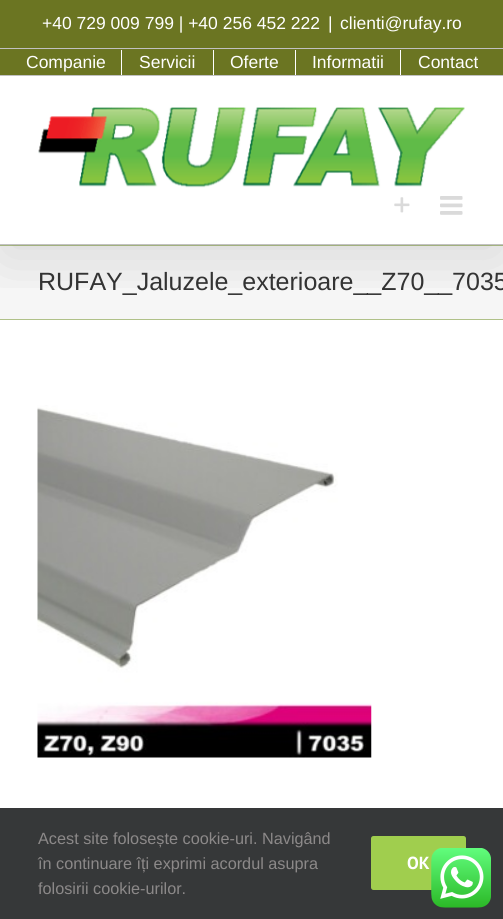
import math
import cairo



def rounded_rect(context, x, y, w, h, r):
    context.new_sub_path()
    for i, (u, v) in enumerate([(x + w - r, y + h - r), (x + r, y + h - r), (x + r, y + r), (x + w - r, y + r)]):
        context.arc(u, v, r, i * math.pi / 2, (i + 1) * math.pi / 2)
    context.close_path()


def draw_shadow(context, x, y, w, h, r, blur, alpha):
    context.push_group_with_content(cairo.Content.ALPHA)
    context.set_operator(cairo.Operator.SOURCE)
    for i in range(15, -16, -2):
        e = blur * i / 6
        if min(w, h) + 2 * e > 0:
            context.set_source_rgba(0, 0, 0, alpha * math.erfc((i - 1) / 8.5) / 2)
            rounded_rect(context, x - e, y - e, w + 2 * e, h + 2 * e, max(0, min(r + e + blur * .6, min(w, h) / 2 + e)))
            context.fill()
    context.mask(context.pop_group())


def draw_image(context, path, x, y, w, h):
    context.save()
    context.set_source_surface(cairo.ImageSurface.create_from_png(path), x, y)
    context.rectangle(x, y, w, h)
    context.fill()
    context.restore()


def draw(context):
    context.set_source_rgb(1, 1, 1)
    context.paint()
    context.set_source_rgb(246 / 255, 246 / 255, 246 / 255)
    context.rectangle(0, 246, 503, 73)
    context.fill()
    context.set_source_rgb(176 / 255, 193 / 255, 137 / 255)
    context.rectangle(0, 245, 503, 1)
    context.fill()
    context.rectangle(0, 319, 503, 1)
    context.fill()
    context.save()
    context.rectangle(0, 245, 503, 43)
    context.clip()
    context.set_source_rgb(0, 0, 0)
    draw_shadow(context, 3, 15, 498, 240, 0, 31, 0.14)
    context.restore()
    context.set_source_rgb(107 / 255, 117 / 255, 34 / 255)
    context.rectangle(0, 0, 503, 75)
    context.fill()
    context.set_source_rgb(193 / 255, 193 / 255, 193 / 255)
    context.rectangle(0, 75, 503, 1)
    context.fill()
    context.rectangle(0, 48, 503, 1)
    context.fill()
    context.set_source_rgb(1, 1, 1)
    context.rectangle(121, 50, 1, 25)
    context.fill()
    context.rectangle(213, 50, 1, 25)
    context.fill()
    context.rectangle(295, 50, 1, 25)
    context.fill()
    context.rectangle(400, 50, 1, 25)
    context.fill()
    context.set_source_rgb(193 / 255, 193 / 255, 193 / 255)
    context.rectangle(0, 244, 503, 1)
    context.fill()
    draw_image(context, "images/1.png", 38, 107, 427, 81)
    draw_image(context, "images/2.png", 394, 197, 16, 16)
    draw_image(context, "images/3.png", 440, 196, 23, 19)
    draw_image(context, "images/4.png", 37, 405, 335, 353)
    context.set_source_rgb(54 / 255, 56 / 255, 57 / 255)
    context.rectangle(0, 808, 503, 111)
    context.fill()
    context.set_source_rgb(160 / 255, 206 / 255, 78 / 255)
    rounded_rect(context, 371, 836, 95, 54, 2.5)
    context.fill()
    draw_image(context, "images/5.png", 431, 848, 60, 60)
    context.select_font_face("Liberation Sans")
    context.set_font_size(17.5)
    context.set_source_rgb(1, 1, 1)
    context.move_to(42, 29)
    context.show_text("+40 729 009 799 | +40 256 452 222")
    context.move_to(328, 29)
    context.show_text("|")
    context.move_to(340, 29)
    context.show_text("clienti@rufay.ro")
    context.move_to(26, 68)
    context.show_text("Companie")
    context.move_to(139, 68)
    context.show_text("Servicii")
    context.move_to(230, 68)
    context.show_text("Oferte")
    context.move_to(312, 68)
    context.show_text("Informatii")
    context.move_to(418, 68)
    context.show_text("Contact")
    context.set_font_size(25)
    context.set_source_rgb(51 / 255, 51 / 255, 51 / 255)
    context.move_to(38, 290)
    context.show_text("RUFAY_Jaluzele_exterioare__Z70__7035")
    context.set_font_size(16.25)
    context.set_source_rgb(140 / 255, 137 / 255, 137 / 255)
    context.move_to(38, 844)
    context.show_text("Acest site folosește cookie-uri. Navigând")
    context.move_to(38, 869)
    context.show_text("în continuare îți exprimi acordul asupra")
    context.move_to(38, 894)
    context.show_text("folosirii cookie-urilor.")
    context.select_font_face("PT Sans", cairo.FontSlant.NORMAL, cairo.FontWeight.BOLD)
    context.set_font_size(17.5)
    context.set_source_rgb(1, 1, 1)
    context.move_to(407, 869)
    context.show_text("OK")


surface = cairo.ImageSurface(cairo.Format.RGB24, 503, 919)
context = cairo.Context(surface)
options = cairo.FontOptions()
options.set_hint_metrics(cairo.HintMetrics.OFF)
options.set_hint_style(cairo.HintStyle.NONE)
context.set_font_options(options)
context.set_miter_limit(4)
draw(context)
surface.write_to_png("out.png")
